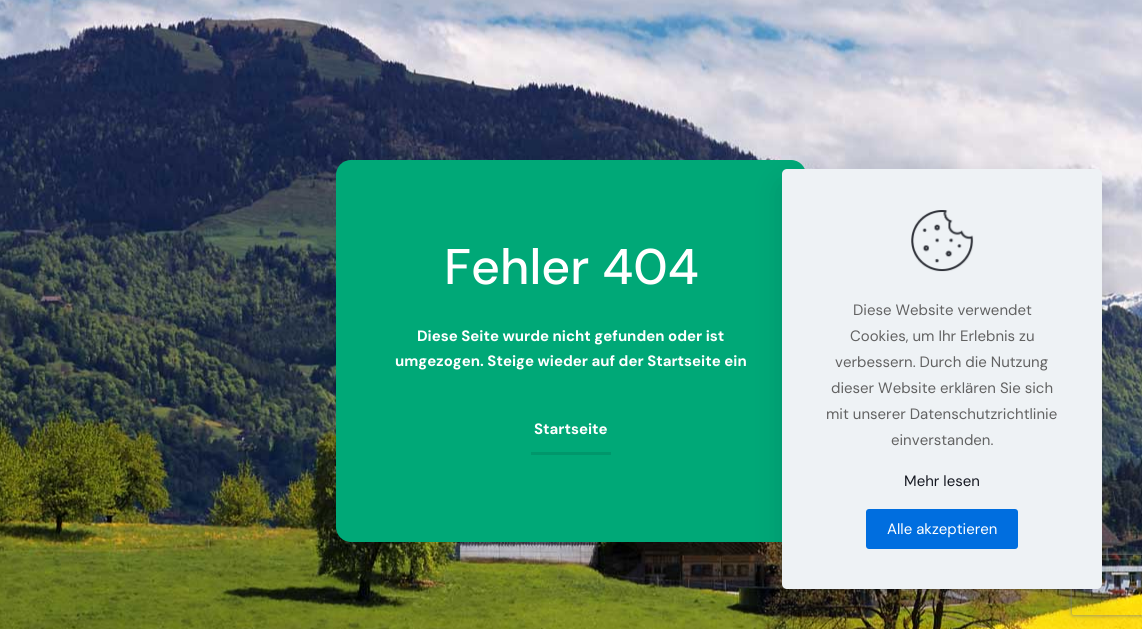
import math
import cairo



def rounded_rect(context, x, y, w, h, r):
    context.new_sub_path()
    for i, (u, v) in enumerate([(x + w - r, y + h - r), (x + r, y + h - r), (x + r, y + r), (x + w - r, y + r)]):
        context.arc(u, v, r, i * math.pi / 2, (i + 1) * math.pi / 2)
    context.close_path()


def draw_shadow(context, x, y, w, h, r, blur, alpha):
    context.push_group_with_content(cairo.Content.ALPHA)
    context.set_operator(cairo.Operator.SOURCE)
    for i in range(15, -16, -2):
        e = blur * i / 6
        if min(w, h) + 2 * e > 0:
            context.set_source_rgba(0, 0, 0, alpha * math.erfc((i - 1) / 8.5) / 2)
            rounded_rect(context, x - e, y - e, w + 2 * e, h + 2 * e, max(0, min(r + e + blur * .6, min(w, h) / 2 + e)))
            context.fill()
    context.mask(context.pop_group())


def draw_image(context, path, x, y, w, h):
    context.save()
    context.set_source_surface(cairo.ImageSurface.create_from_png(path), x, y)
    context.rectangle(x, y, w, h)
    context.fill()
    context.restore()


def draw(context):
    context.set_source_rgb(1, 1, 1)
    context.paint()
    draw_image(context, "images/1.png", 0, 0, 1142, 629)
    context.set_source_rgb(0, 168 / 255, 119 / 255)
    rounded_rect(context, 336, 160, 470, 382, 15)
    context.fill()
    context.set_source_rgb(0, 151 / 255, 107 / 255)
    context.rectangle(531, 452, 80, 3)
    context.fill()
    context.set_source_rgb(1 / 255, 7 / 255, 39 / 255)
    draw_shadow(context, 782, 184, 320, 420, 5, 15, 0.13)
    context.save()
    context.set_fill_rule(cairo.FillRule.EVEN_ODD)
    context.new_path()
    context.move_to(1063, 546)
    context.line_to(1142, 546)
    context.line_to(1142, 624)
    context.line_to(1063, 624)
    context.close_path()
    context.move_to(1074, 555)
    context.line_to(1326, 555)
    context.curve_to(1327, 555, 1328, 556, 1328, 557)
    context.line_to(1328, 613)
    context.curve_to(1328, 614, 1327, 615, 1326, 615)
    context.line_to(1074, 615)
    context.curve_to(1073, 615, 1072, 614, 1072, 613)
    context.line_to(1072, 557)
    context.curve_to(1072, 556, 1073, 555, 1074, 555)
    context.close_path()
    context.clip()
    context.set_source_rgb(128 / 255, 128 / 255, 128 / 255)
    draw_shadow(context, 1072, 555, 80, 60, 2, 2.5, 1)
    context.restore()
    context.set_source_rgb(238 / 255, 242 / 255, 245 / 255)
    rounded_rect(context, 782, 169, 320, 420, 5)
    context.fill()
    draw_image(context, "images/2.png", 911, 210, 63, 62)
    context.set_source_rgb(0, 110 / 255, 223 / 255)
    rounded_rect(context, 866, 509, 152, 40, 3)
    context.fill()
    context.select_font_face("DM Sans Medium")
    context.set_font_size(50)
    context.set_source_rgb(1, 1, 1)
    context.move_to(444, 284)
    context.show_text("Fehler 404")
    context.select_font_face("DM Sans", cairo.FontSlant.NORMAL, cairo.FontWeight.BOLD)
    context.set_font_size(15)
    context.move_to(417, 341)
    context.show_text("Diese Seite wurde nicht gefunden oder ist")
    context.move_to(395, 366)
    context.show_text("umgezogen. Steige wieder auf der Startseite ein")
    context.move_to(534, 434)
    context.show_text("Startseite")
    context.select_font_face("DM Sans")
    context.set_source_rgb(98 / 255, 98 / 255, 98 / 255)
    context.move_to(853, 315)
    context.show_text("Diese Website verwendet")
    context.move_to(850, 341)
    context.show_text("Cookies, um Ihr Erlebnis zu")
    context.move_to(835, 367)
    context.show_text("verbessern. Durch die Nutzung")
    context.move_to(831, 393)
    context.show_text("dieser Website erklären Sie sich")
    context.move_to(826, 419)
    context.show_text("mit unserer Datenschutzrichtlinie")
    context.move_to(891, 445)
    context.show_text("einverstanden.")
    context.set_source_rgb(22 / 255, 25 / 255, 34 / 255)
    context.move_to(904, 486)
    context.show_text("Mehr lesen")
    context.set_source_rgb(1, 1, 1)
    context.move_to(887, 534)
    context.show_text("Alle akzeptieren")


surface = cairo.ImageSurface(cairo.Format.RGB24, 1142, 629)
context = cairo.Context(surface)
options = cairo.FontOptions()
options.set_hint_metrics(cairo.HintMetrics.OFF)
options.set_hint_style(cairo.HintStyle.NONE)
context.set_font_options(options)
context.set_miter_limit(4)
draw(context)
surface.write_to_png("out.png")
